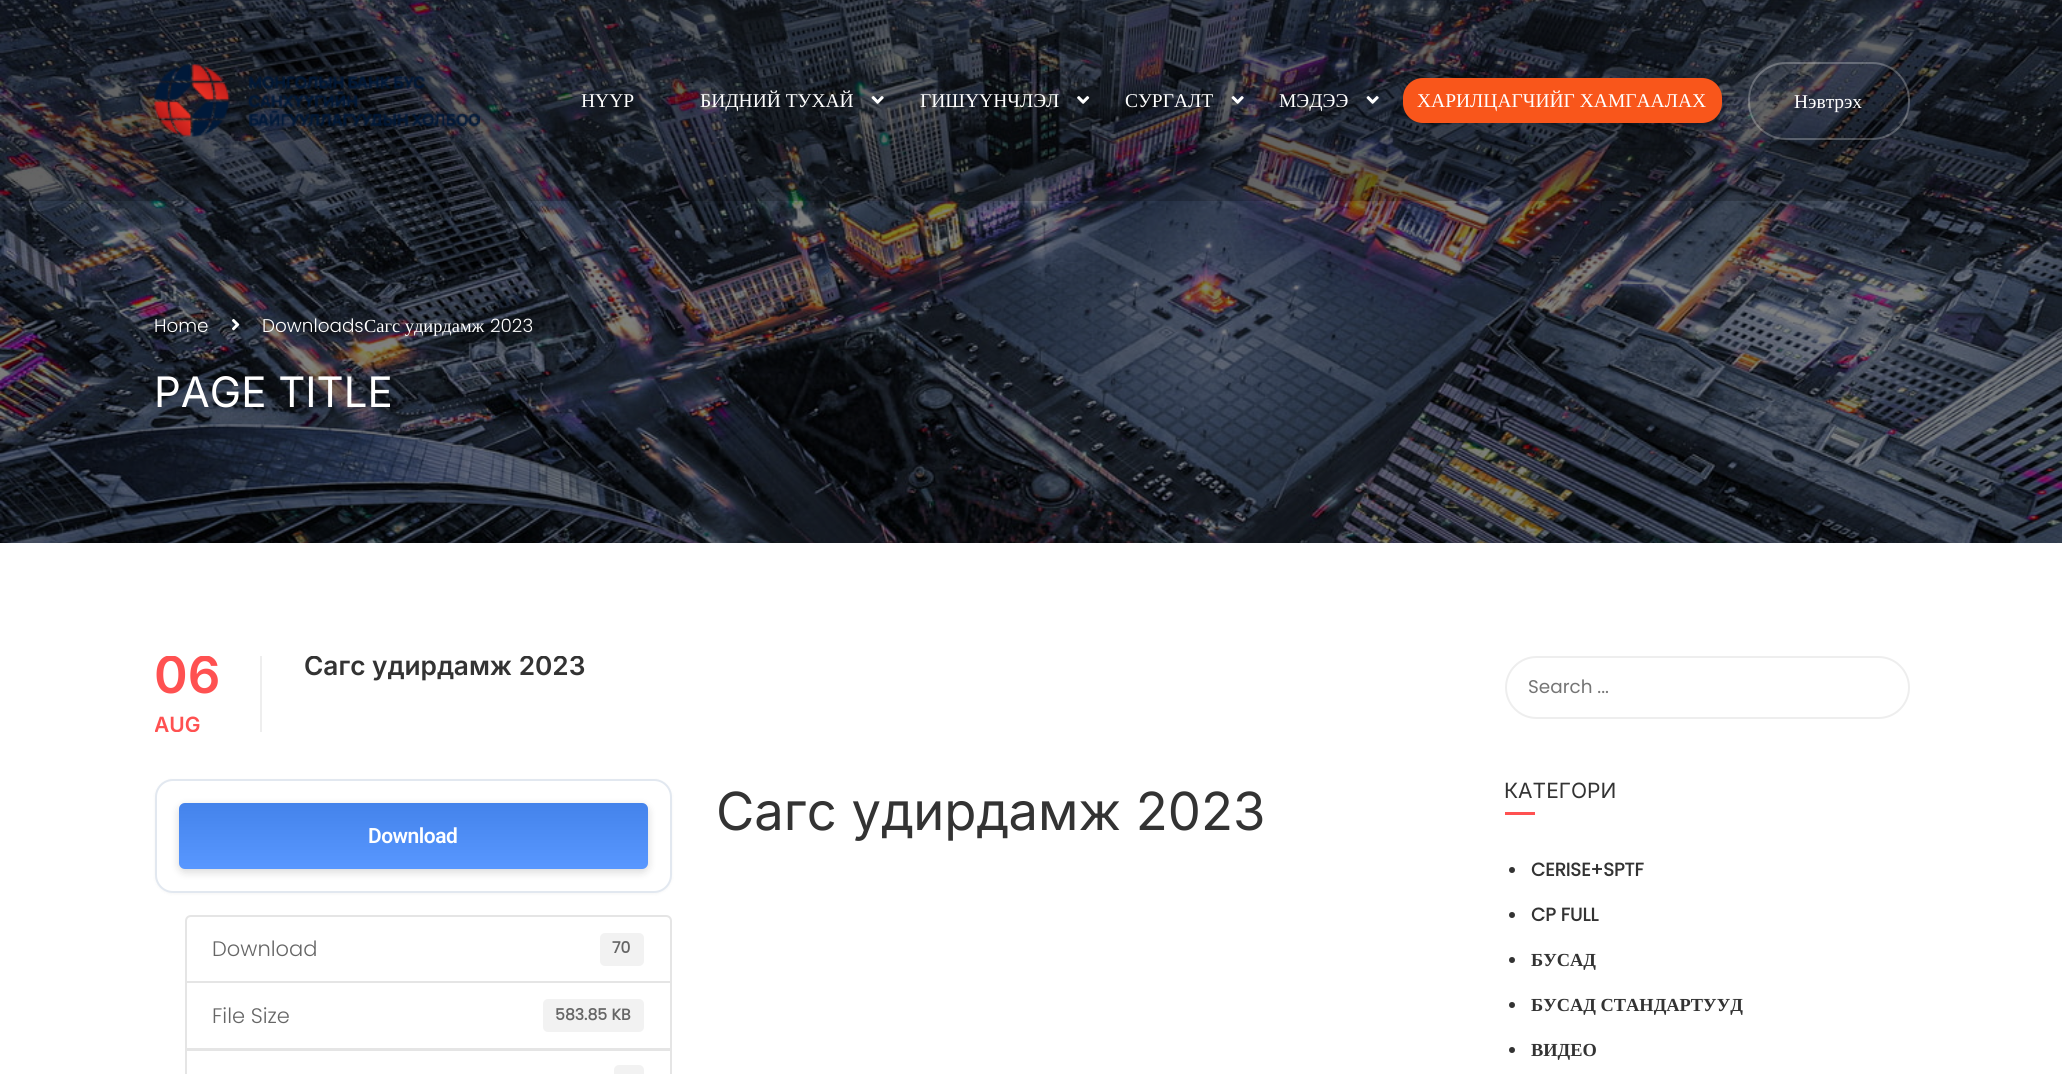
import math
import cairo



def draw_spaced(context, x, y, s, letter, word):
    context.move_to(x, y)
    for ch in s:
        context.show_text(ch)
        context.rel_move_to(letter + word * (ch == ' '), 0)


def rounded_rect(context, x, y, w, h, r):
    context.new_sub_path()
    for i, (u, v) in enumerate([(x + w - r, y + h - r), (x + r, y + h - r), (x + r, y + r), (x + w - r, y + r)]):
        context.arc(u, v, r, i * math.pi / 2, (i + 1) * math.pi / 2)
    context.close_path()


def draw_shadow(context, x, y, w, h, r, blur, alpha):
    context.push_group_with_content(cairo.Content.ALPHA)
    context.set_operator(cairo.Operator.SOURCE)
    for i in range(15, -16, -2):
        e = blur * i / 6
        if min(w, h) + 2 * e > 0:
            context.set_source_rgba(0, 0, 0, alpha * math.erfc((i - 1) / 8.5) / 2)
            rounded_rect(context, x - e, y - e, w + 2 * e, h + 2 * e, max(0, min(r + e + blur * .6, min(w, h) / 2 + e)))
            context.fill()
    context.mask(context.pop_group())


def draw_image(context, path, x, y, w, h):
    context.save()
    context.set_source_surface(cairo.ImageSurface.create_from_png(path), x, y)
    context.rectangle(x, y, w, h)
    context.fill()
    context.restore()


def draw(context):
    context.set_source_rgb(1, 1, 1)
    context.paint()
    draw_image(context, "images/6.png", 0, 0, 2062, 543)
    context.set_source_rgba(0, 0, 0, 0.21)
    context.rectangle(0, 0, 2062, 201)
    context.fill()
    draw_image(context, "images/1.png", 154, 64, 326, 73)
    draw_image(context, "images/2.png", 871, 96, 13, 8)
    draw_image(context, "images/3.png", 1077, 96, 13, 8)
    draw_image(context, "images/4.png", 1231, 96, 13, 8)
    draw_image(context, "images/5.png", 1366, 96, 13, 8)
    context.set_source_rgb(249 / 255, 86 / 255, 27 / 255)
    rounded_rect(context, 1403, 78, 319, 45, 20)
    context.fill()
    rounded_rect(context, 1749, 63, 160, 76, 37)
    context.set_source_rgba(1, 1, 1, 0.25)
    context.stroke()
    draw_image(context, "images/7.png", 231, 318, 9, 13)
    context.set_source_rgb(238 / 255, 238 / 255, 238 / 255)
    context.rectangle(260, 656, 2, 76)
    context.fill()
    context.set_source_rgb(0, 0, 0)
    draw_shadow(context, 155, 780, 517, 114, 18, 2, 0.04)
    context.set_source_rgb(1, 1, 1)
    rounded_rect(context, 156, 780, 515, 112, 17)
    context.fill_preserve()
    context.set_source_rgb(226 / 255, 232 / 255, 240 / 255)
    context.stroke()
    context.set_source_rgb(0, 0, 0)
    draw_shadow(context, 179, 806, 469, 66, 6, 4.5, 0.15)
    context.set_source_rgb(74 / 255, 142 / 255, 1)
    rounded_rect(context, 179, 803, 469, 66, 6)
    context.fill()
    gradient = cairo.LinearGradient(413, 803, 413, 869)
    gradient.add_color_stop_rgba(0, 0, 0, 0, 0.08)
    gradient.add_color_stop_rgba(1, 1, 1, 1, 0.08)
    context.set_source(gradient)
    rounded_rect(context, 179, 803, 469, 66, 6)
    context.fill()
    context.new_path()
    context.move_to(191, 916)
    context.line_to(666, 916)
    context.curve_to(669, 916, 671, 918, 671, 921)
    context.line_to(671, 982)
    context.line_to(186, 982)
    context.line_to(186, 921)
    context.curve_to(186, 918, 188, 916, 191, 916)
    context.close_path()
    context.set_source_rgb(229 / 255, 229 / 255, 229 / 255)
    context.stroke()
    context.set_source_rgb(242 / 255, 242 / 255, 242 / 255)
    rounded_rect(context, 600, 933, 44, 33, 5)
    context.fill()
    context.rectangle(186, 982, 485, 67)
    context.set_source_rgb(229 / 255, 229 / 255, 229 / 255)
    context.stroke()
    context.set_source_rgb(242 / 255, 242 / 255, 242 / 255)
    rounded_rect(context, 543, 999, 101, 33, 5)
    context.fill()
    context.rectangle(186, 1050, 485, 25)
    context.set_source_rgb(229 / 255, 229 / 255, 229 / 255)
    context.stroke()
    context.set_source_rgb(242 / 255, 242 / 255, 242 / 255)
    rounded_rect(context, 614, 1065, 30, 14, 5)
    context.fill()
    rounded_rect(context, 1506, 657, 403, 61, 30.5)
    context.set_source_rgb(238 / 255, 238 / 255, 238 / 255)
    context.stroke()
    context.set_source_rgb(1, 81 / 255, 81 / 255)
    context.rectangle(1505, 812, 30, 3)
    context.fill()
    context.set_source_rgb(51 / 255, 51 / 255, 51 / 255)
    context.arc(1512, 870, 3, 0, 2 * math.pi)
    context.fill()
    context.arc(1512, 915, 3, 0, 2 * math.pi)
    context.fill()
    context.arc(1512, 960, 3, 0, 2 * math.pi)
    context.fill()
    context.arc(1512, 1005, 3, 0, 2 * math.pi)
    context.fill()
    context.arc(1512, 1050, 3, 0, 2 * math.pi)
    context.fill()
    context.select_font_face("Liberation Serif")
    context.set_font_size(19.5)
    context.set_source_rgb(1, 1, 1)
    context.move_to(581, 107)
    context.show_text("НҮҮР")
    context.move_to(700, 107)
    context.show_text("БИДНИЙ ТУХАЙ")
    context.move_to(920, 107)
    context.show_text("ГИШҮҮНЧЛЭЛ")
    context.move_to(1125, 107)
    context.show_text("СУРГАЛТ")
    context.move_to(1279, 107)
    context.show_text("МЭДЭЭ")
    context.move_to(1417, 107)
    context.show_text("ХАРИЛЦАГЧИЙГ ХАМГААЛАХ")
    context.move_to(1794, 108)
    context.show_text("Нэвтрэх")
    context.select_font_face("Poppins Light")
    context.set_font_size(18.4)
    context.move_to(154, 332)
    context.show_text("Home")
    context.move_to(262, 332)
    context.show_text("Downloads")
    context.select_font_face("Liberation Serif")
    context.move_to(364, 332)
    context.show_text("Сагс удирдамж")
    context.select_font_face("Poppins Light")
    context.move_to(490, 332)
    context.show_text("2023")
    context.select_font_face("Inter")
    context.set_font_size(42)
    context.move_to(154, 407)
    context.show_text("PAGE TITLE")
    context.save()
    context.rectangle(155, 656, 1305, 76)
    context.clip()
    context.select_font_face("Inter SemiBold")
    context.set_font_size(51)
    context.set_source_rgb(1, 81 / 255, 81 / 255)
    context.move_to(154, 693)
    context.show_text("06")
    context.set_font_size(21)
    context.move_to(154, 732)
    context.show_text("AUG")
    context.set_font_size(26.25)
    context.set_source_rgb(51 / 255, 51 / 255, 51 / 255)
    context.move_to(304, 675)
    context.show_text("Сагс удирдамж 2023")
    context.restore()
    context.set_font_size(52.5)
    context.set_source_rgb(51 / 255, 51 / 255, 51 / 255)
    context.move_to(716, 830)
    context.show_text("Сагс удирдамж 2023")
    context.select_font_face("Roboto SemiBold")
    context.set_font_size(21)
    context.set_source_rgb(1, 1, 1)
    draw_spaced(context, 368, 843, "Download", -0.5, 0)
    context.select_font_face("Poppins Light")
    context.set_source_rgb(102 / 255, 102 / 255, 102 / 255)
    context.move_to(212, 956)
    context.show_text("Download")
    context.select_font_face("Poppins", cairo.FontSlant.NORMAL, cairo.FontWeight.BOLD)
    context.set_font_size(15.75)
    context.move_to(612, 953)
    context.show_text("70")
    context.select_font_face("Poppins Light")
    context.set_font_size(21)
    context.move_to(212, 1023)
    context.show_text("File Size")
    context.select_font_face("Poppins", cairo.FontSlant.NORMAL, cairo.FontWeight.BOLD)
    context.set_font_size(15.75)
    context.move_to(555, 1020)
    context.show_text("583.85 KB")
    context.select_font_face("Poppins")
    context.set_font_size(18.4)
    context.set_source_rgb(117 / 255, 117 / 255, 117 / 255)
    context.move_to(1528, 693)
    context.show_text("Search ...")
    context.select_font_face("Inter")
    context.set_font_size(21)
    context.set_source_rgb(51 / 255, 51 / 255, 51 / 255)
    context.move_to(1504, 798)
    context.show_text("КАТЕГОРИ")
    context.select_font_face("Poppins", cairo.FontSlant.NORMAL, cairo.FontWeight.BOLD)
    context.set_font_size(18.4)
    context.move_to(1531, 876)
    context.show_text("CERISE+SPTF")
    context.move_to(1531, 921)
    context.show_text("CP FULL")
    context.select_font_face("Liberation Serif", cairo.FontSlant.NORMAL, cairo.FontWeight.BOLD)
    context.move_to(1531, 966)
    context.show_text("БУСАД")
    context.move_to(1531, 1011)
    context.show_text("БУСАД СТАНДАРТУУД")
    context.move_to(1531, 1056)
    context.show_text("ВИДЕО")


surface = cairo.ImageSurface(cairo.Format.RGB24, 2062, 1074)
context = cairo.Context(surface)
options = cairo.FontOptions()
options.set_hint_metrics(cairo.HintMetrics.OFF)
options.set_hint_style(cairo.HintStyle.NONE)
context.set_font_options(options)
context.set_miter_limit(4)
draw(context)
surface.write_to_png("out.png")
